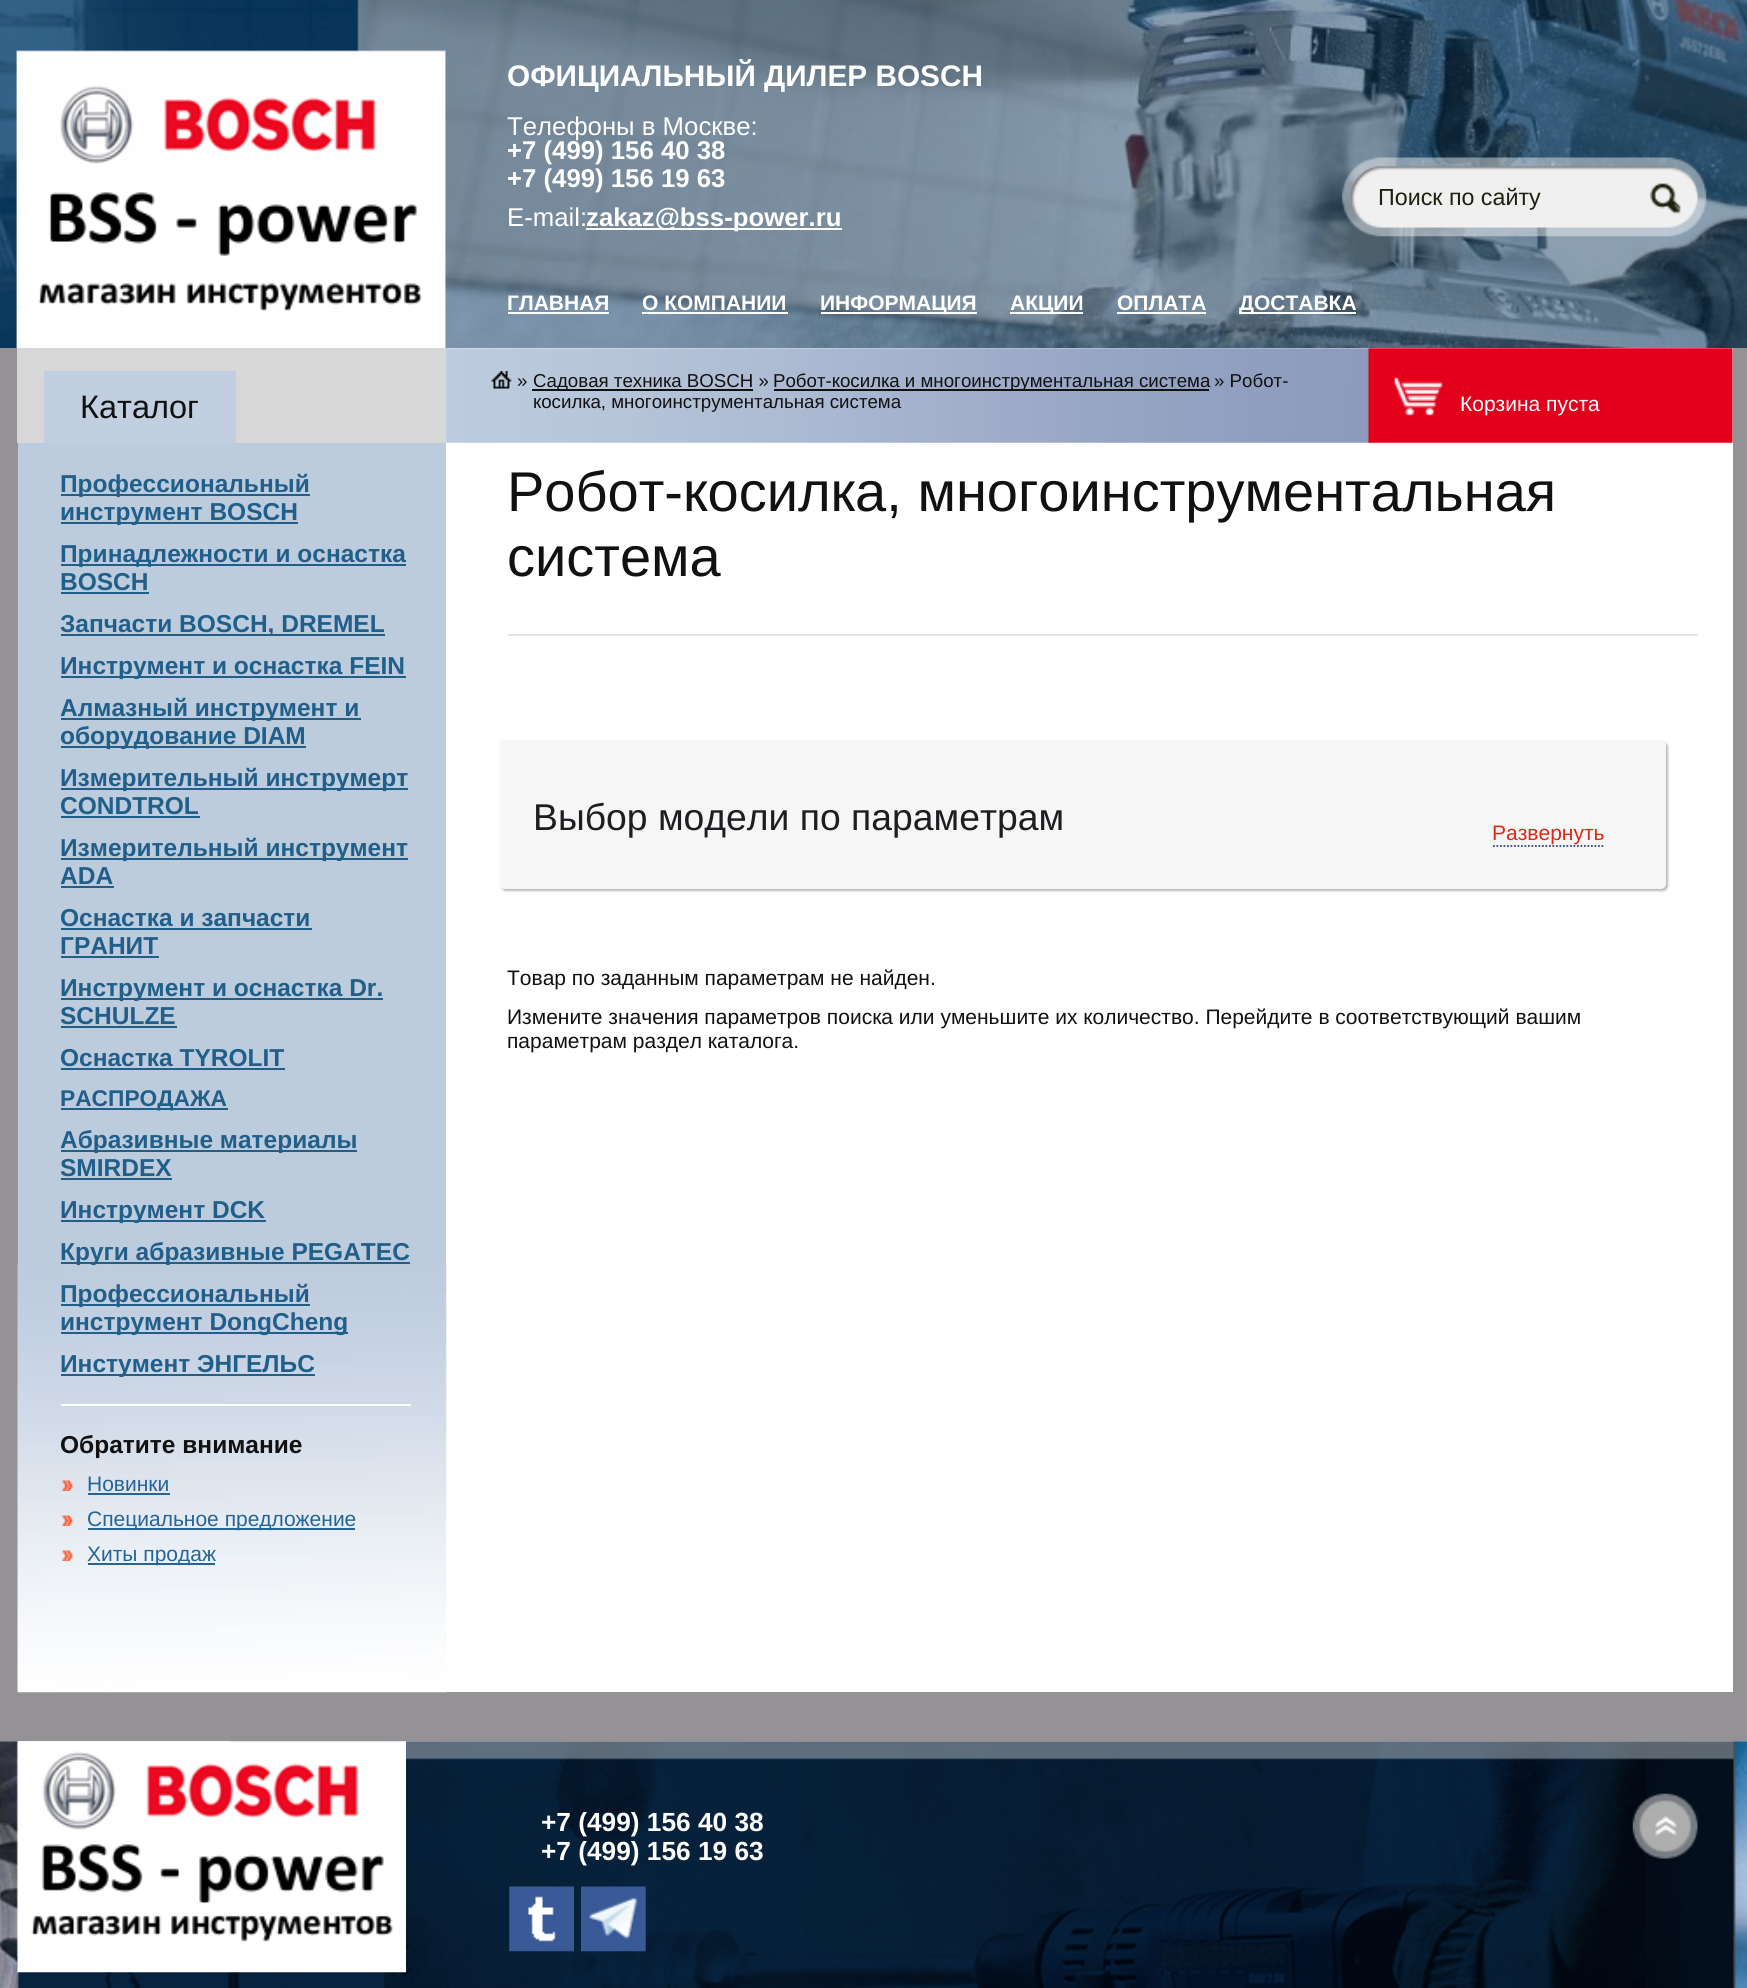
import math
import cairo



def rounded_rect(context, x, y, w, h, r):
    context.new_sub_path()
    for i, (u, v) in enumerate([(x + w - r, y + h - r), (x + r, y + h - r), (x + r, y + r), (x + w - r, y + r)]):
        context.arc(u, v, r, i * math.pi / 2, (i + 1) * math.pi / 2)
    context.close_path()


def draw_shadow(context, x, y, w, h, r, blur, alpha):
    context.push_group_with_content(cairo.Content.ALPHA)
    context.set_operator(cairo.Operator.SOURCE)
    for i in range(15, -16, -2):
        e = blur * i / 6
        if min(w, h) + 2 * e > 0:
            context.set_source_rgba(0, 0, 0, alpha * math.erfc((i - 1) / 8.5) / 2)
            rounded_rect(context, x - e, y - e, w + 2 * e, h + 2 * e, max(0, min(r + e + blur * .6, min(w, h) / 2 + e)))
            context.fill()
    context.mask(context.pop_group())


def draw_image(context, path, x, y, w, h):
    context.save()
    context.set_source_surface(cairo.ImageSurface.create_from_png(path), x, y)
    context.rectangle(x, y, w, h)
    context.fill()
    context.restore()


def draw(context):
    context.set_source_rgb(1, 1, 1)
    context.paint()
    draw_image(context, "images/1.png", 0, 0, 1747, 348)
    draw_image(context, "images/2.png", 17, 85, 428, 263)
    context.set_source_rgb(1, 1, 1)
    context.rectangle(586, 228, 256, 2)
    context.fill()
    draw_image(context, "images/3.png", 1342, 157, 365, 80)
    draw_image(context, "images/4.png", 1649, 183, 32, 31)
    context.rectangle(508, 312, 101, 2)
    context.fill()
    context.rectangle(642, 312, 146, 2)
    context.fill()
    context.rectangle(821, 312, 156, 2)
    context.fill()
    context.rectangle(1010, 312, 73, 2)
    context.fill()
    context.rectangle(1117, 312, 89, 2)
    context.fill()
    context.rectangle(1239, 312, 117, 2)
    context.fill()
    context.set_source_rgb(148 / 255, 146 / 255, 148 / 255)
    context.rectangle(0, 348, 1747, 1393)
    context.fill()
    context.set_source_rgb(1, 1, 1)
    context.rectangle(446, 348, 1287, 1344)
    context.fill()
    context.set_source_rgb(214 / 255, 215 / 255, 214 / 255)
    context.rectangle(17, 348, 430, 95)
    context.fill()
    context.set_source_rgb(194 / 255, 207 / 255, 224 / 255)
    context.rectangle(44, 371, 192, 72)
    context.fill()
    context.set_source_rgb(188 / 255, 204 / 255, 220 / 255)
    context.rectangle(18, 443, 428, 821)
    context.fill()
    draw_image(context, "images/5.png", 17, 1263, 430, 430)
    context.set_source_rgb(33 / 255, 95 / 255, 139 / 255)
    context.rectangle(61, 494, 249, 2)
    context.fill()
    context.rectangle(61, 522, 237, 2)
    context.fill()
    context.rectangle(61, 564, 345, 2)
    context.fill()
    context.rectangle(61, 592, 88, 2)
    context.fill()
    context.rectangle(61, 634, 324, 2)
    context.fill()
    context.rectangle(61, 676, 345, 2)
    context.fill()
    context.rectangle(61, 718, 300, 2)
    context.fill()
    context.rectangle(61, 746, 245, 2)
    context.fill()
    context.rectangle(61, 788, 347, 2)
    context.fill()
    context.rectangle(61, 816, 139, 2)
    context.fill()
    context.rectangle(61, 858, 347, 2)
    context.fill()
    context.rectangle(61, 886, 53, 2)
    context.fill()
    context.rectangle(61, 928, 251, 2)
    context.fill()
    context.rectangle(61, 956, 98, 2)
    context.fill()
    context.rectangle(61, 998, 322, 2)
    context.fill()
    context.rectangle(61, 1026, 116, 2)
    context.fill()
    context.rectangle(61, 1068, 224, 2)
    context.fill()
    context.rectangle(61, 1108, 167, 2)
    context.fill()
    context.rectangle(61, 1150, 296, 2)
    context.fill()
    context.rectangle(61, 1178, 111, 2)
    context.fill()
    context.rectangle(61, 1220, 205, 2)
    context.fill()
    context.rectangle(61, 1262, 349, 2)
    context.fill()
    context.rectangle(61, 1304, 249, 2)
    context.fill()
    context.rectangle(61, 1332, 287, 2)
    context.fill()
    context.rectangle(61, 1374, 254, 2)
    context.fill()
    context.set_source_rgb(1, 1, 1)
    context.rectangle(61, 1404, 350, 2)
    context.fill()
    draw_image(context, "images/6.png", 61, 1480, 13, 11)
    context.set_source_rgb(37 / 255, 101 / 255, 149 / 255)
    context.rectangle(88, 1493, 82, 2)
    context.fill()
    draw_image(context, "images/7.png", 61, 1515, 13, 11)
    context.rectangle(88, 1528, 267, 2)
    context.fill()
    draw_image(context, "images/8.png", 61, 1550, 13, 11)
    context.rectangle(88, 1563, 127, 2)
    context.fill()
    draw_image(context, "images/9.png", 446, 348, 1287, 95)
    draw_image(context, "images/10.png", 491, 371, 21, 18)
    context.set_source_rgb(17 / 255, 17 / 255, 17 / 255)
    context.rectangle(532, 389, 221, 2)
    context.fill()
    context.rectangle(774, 389, 435, 2)
    context.fill()
    draw_image(context, "images/11.png", 1394, 377, 49, 39)
    context.set_source_rgb(228 / 255, 228 / 255, 228 / 255)
    context.rectangle(508, 634, 1190, 2)
    context.fill()
    context.set_source_rgb(31 / 255, 32 / 255, 31 / 255)
    draw_shadow(context, 501, 742, 1167, 149, 5, 1, 0.3)
    context.set_source_rgb(246 / 255, 246 / 255, 246 / 255)
    rounded_rect(context, 499, 740, 1167, 149, 5)
    context.fill()
    context.new_path()
    context.move_to(1493, 846)
    context.line_to(1605, 846)
    context.set_source_rgb(46 / 255, 68 / 255, 115 / 255)
    context.set_line_width(1.8)
    context.set_dash([1.75, 1.75])
    context.stroke()
    draw_image(context, "images/12.png", 0, 1741, 1747, 247)
    draw_image(context, "images/13.png", 17, 1741, 389, 232)
    draw_image(context, "images/14.png", 509, 1886, 65, 66)
    draw_image(context, "images/15.png", 581, 1886, 65, 66)
    draw_image(context, "images/16.png", 1632, 1793, 66, 66)
    context.select_font_face("Liberation Sans", cairo.FontSlant.NORMAL, cairo.FontWeight.BOLD)
    context.set_font_size(29.75)
    context.set_source_rgb(1, 1, 1)
    context.move_to(507, 86)
    context.show_text("ОФИЦИАЛЬНЫЙ ДИЛЕР BOSCH")
    context.select_font_face("Liberation Sans")
    context.set_font_size(25.75)
    context.move_to(507, 135)
    context.show_text("Телефоны в Москве:")
    context.select_font_face("Liberation Sans", cairo.FontSlant.NORMAL, cairo.FontWeight.BOLD)
    context.move_to(507, 159)
    context.show_text("+7 (499) 156 40 38")
    context.move_to(507, 187)
    context.show_text("+7 (499) 156 19 63")
    context.select_font_face("Liberation Sans")
    context.move_to(507, 226)
    context.show_text("E-mail:")
    context.select_font_face("Liberation Sans", cairo.FontSlant.NORMAL, cairo.FontWeight.BOLD)
    context.move_to(586, 226)
    context.show_text("zakaz@bss-power.ru")
    context.select_font_face("Liberation Sans")
    context.set_font_size(23.25)
    context.set_source_rgb(31 / 255, 32 / 255, 16 / 255)
    context.move_to(1378, 205)
    context.show_text("Поиск по сайту")
    context.select_font_face("Liberation Sans", cairo.FontSlant.NORMAL, cairo.FontWeight.BOLD)
    context.set_font_size(21)
    context.set_source_rgb(1, 1, 1)
    context.move_to(507, 310)
    context.show_text("ГЛАВНАЯ")
    context.move_to(642, 310)
    context.show_text("О КОМПАНИИ")
    context.move_to(820, 310)
    context.show_text("ИНФОРМАЦИЯ")
    context.move_to(1010, 310)
    context.show_text("АКЦИИ")
    context.move_to(1117, 310)
    context.show_text("ОПЛАТА")
    context.move_to(1239, 310)
    context.show_text("ДОСТАВКА")
    context.select_font_face("Liberation Sans")
    context.set_font_size(32.5)
    context.set_source_rgb(17 / 255, 17 / 255, 17 / 255)
    context.move_to(80, 418)
    context.show_text("Каталог")
    context.select_font_face("Liberation Sans", cairo.FontSlant.NORMAL, cairo.FontWeight.BOLD)
    context.set_font_size(24.5)
    context.set_source_rgb(33 / 255, 95 / 255, 139 / 255)
    context.move_to(60, 492)
    context.show_text("Профессиональный")
    context.move_to(60, 520)
    context.show_text("инструмент BOSCH")
    context.move_to(60, 562)
    context.show_text("Принадлежности и оснастка")
    context.move_to(60, 590)
    context.show_text("BOSCH")
    context.move_to(60, 632)
    context.show_text("Запчасти BOSCH, DREMEL")
    context.move_to(60, 674)
    context.show_text("Инструмент и оснастка FEIN")
    context.move_to(60, 716)
    context.show_text("Алмазный инструмент и")
    context.move_to(60, 744)
    context.show_text("оборудование DIAM")
    context.move_to(60, 786)
    context.show_text("Измерительный инструмерт")
    context.move_to(60, 814)
    context.show_text("CONDTROL")
    context.move_to(60, 856)
    context.show_text("Измерительный инструмент")
    context.move_to(60, 884)
    context.show_text("ADA")
    context.move_to(60, 926)
    context.show_text("Оснастка и запчасти")
    context.move_to(60, 954)
    context.show_text("ГРАНИТ")
    context.move_to(60, 996)
    context.show_text("Инструмент и оснастка Dr.")
    context.move_to(60, 1024)
    context.show_text("SCHULZE")
    context.move_to(60, 1066)
    context.show_text("Оснастка TYROLIT")
    context.set_font_size(22.75)
    context.move_to(60, 1106)
    context.show_text("РАСПРОДАЖА")
    context.set_font_size(24.5)
    context.move_to(60, 1148)
    context.show_text("Абразивные материалы")
    context.move_to(60, 1176)
    context.show_text("SMIRDEX")
    context.move_to(60, 1218)
    context.show_text("Инструмент DCK")
    context.move_to(60, 1260)
    context.show_text("Круги абразивные PEGATEC")
    context.move_to(60, 1302)
    context.show_text("Профессиональный")
    context.move_to(60, 1330)
    context.show_text("инструмент DongCheng")
    context.move_to(60, 1372)
    context.show_text("Инстумент ЭНГЕЛЬС")
    context.set_source_rgb(17 / 255, 17 / 255, 17 / 255)
    context.move_to(60, 1453)
    context.show_text("Обратите внимание")
    context.select_font_face("Liberation Sans")
    context.set_font_size(21)
    context.set_source_rgb(37 / 255, 101 / 255, 149 / 255)
    context.move_to(87, 1491)
    context.show_text("Новинки")
    context.move_to(87, 1526)
    context.show_text("Специальное предложение")
    context.move_to(87, 1561)
    context.show_text("Хиты продаж")
    context.set_font_size(18.7)
    context.set_source_rgb(17 / 255, 17 / 255, 17 / 255)
    context.move_to(517, 387)
    context.show_text("»")
    context.move_to(533, 387)
    context.show_text("Садовая техника BOSCH »")
    context.move_to(773, 387)
    context.show_text("Робот-косилка и многоинструментальная система")
    context.move_to(1214, 387)
    context.show_text("» Робот-")
    context.move_to(533, 408)
    context.show_text("косилка, многоинструментальная система")
    context.set_font_size(21)
    context.set_source_rgb(1, 1, 1)
    context.move_to(1460, 411)
    context.show_text("Корзина пуста")
    context.set_font_size(56)
    context.set_source_rgb(17 / 255, 17 / 255, 17 / 255)
    context.move_to(507, 511)
    context.show_text("Робот-косилка, многоинструментальная")
    context.move_to(507, 576)
    context.show_text("система")
    context.set_font_size(37.3)
    context.set_source_rgb(29 / 255, 30 / 255, 34 / 255)
    context.move_to(533, 830)
    context.show_text("Выбор модели по параметрам")
    context.set_font_size(21)
    context.set_source_rgb(222 / 255, 40 / 255, 24 / 255)
    context.move_to(1492, 840)
    context.show_text("Развернуть")
    context.set_source_rgb(17 / 255, 17 / 255, 17 / 255)
    context.move_to(507, 985)
    context.show_text("Товар по заданным параметрам не найден.")
    context.move_to(507, 1024)
    context.show_text("Измените значения параметров поиска или уменьшите их количество. Перейдите в соответствующий вашим")
    context.move_to(507, 1048)
    context.show_text("параметрам раздел каталога.")
    context.select_font_face("Liberation Sans", cairo.FontSlant.NORMAL, cairo.FontWeight.BOLD)
    context.set_font_size(26.25)
    context.set_source_rgb(1, 1, 1)
    context.move_to(541, 1831)
    context.show_text("+7 (499) 156 40 38")
    context.move_to(541, 1860)
    context.show_text("+7 (499) 156 19 63")


surface = cairo.ImageSurface(cairo.Format.RGB24, 1747, 1988)
context = cairo.Context(surface)
options = cairo.FontOptions()
options.set_hint_metrics(cairo.HintMetrics.OFF)
options.set_hint_style(cairo.HintStyle.NONE)
context.set_font_options(options)
context.set_miter_limit(4)
draw(context)
surface.write_to_png("out.png")
